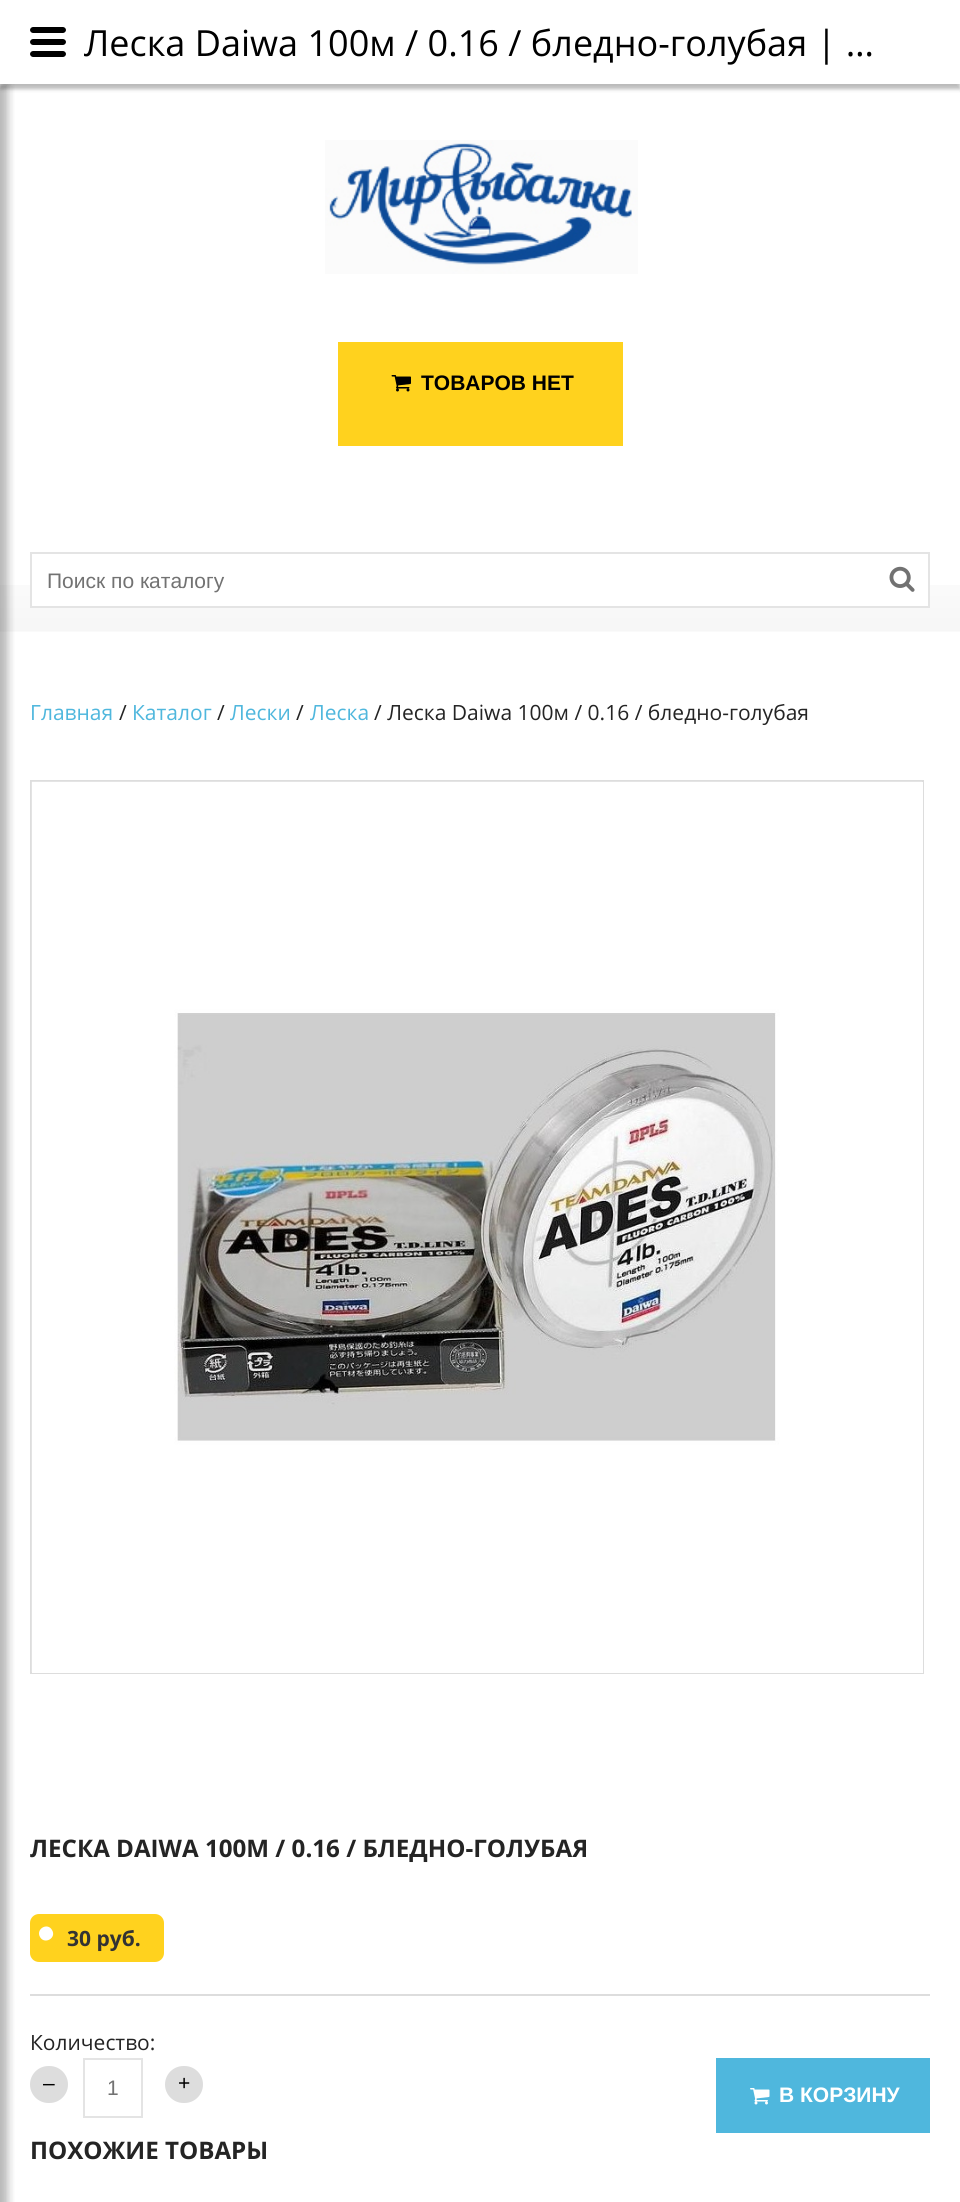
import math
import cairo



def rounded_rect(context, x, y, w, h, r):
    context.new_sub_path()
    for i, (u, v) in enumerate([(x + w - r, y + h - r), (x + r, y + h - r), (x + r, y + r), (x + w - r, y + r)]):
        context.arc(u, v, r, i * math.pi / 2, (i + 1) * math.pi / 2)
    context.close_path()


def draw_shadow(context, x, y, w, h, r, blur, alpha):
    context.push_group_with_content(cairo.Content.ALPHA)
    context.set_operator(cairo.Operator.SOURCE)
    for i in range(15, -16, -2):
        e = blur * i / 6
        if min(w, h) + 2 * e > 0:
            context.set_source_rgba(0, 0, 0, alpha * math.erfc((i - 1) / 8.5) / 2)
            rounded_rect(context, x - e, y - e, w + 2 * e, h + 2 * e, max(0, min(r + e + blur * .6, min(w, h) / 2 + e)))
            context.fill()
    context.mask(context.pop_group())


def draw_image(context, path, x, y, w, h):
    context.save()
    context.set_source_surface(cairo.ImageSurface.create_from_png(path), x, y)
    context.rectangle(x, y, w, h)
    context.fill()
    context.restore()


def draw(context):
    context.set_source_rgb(1, 1, 1)
    context.paint()
    context.set_source_rgb(0, 0, 0)
    draw_shadow(context, 0, 5, 960, 84, 0, 2, 0.1)
    draw_shadow(context, 0, 5, 960, 84, 0, 2, 0.1)
    draw_image(context, "images/3.png", 0, 585, 960, 47)
    draw_shadow(context, -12, 84, 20, 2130, 0, 4, 0.1)
    draw_shadow(context, -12, 84, 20, 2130, 0, 4, 0.1)
    draw_shadow(context, 0, 5, 960, 84, 0, 2, 0.1)
    draw_shadow(context, -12, 84, 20, 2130, 0, 4, 0.1)
    context.set_source_rgb(1, 1, 1)
    context.rectangle(0, 1, 960, 83)
    context.fill()
    context.set_source_rgb(0, 0, 0)
    context.new_path()
    context.move_to(63, 45)
    context.line_to(33, 45)
    context.curve_to(31.5, 45, 30, 43.5, 30, 42)
    context.curve_to(30, 40.5, 31.5, 39, 33, 39)
    context.line_to(63, 39)
    context.curve_to(64.5, 39, 66, 40.5, 66, 42)
    context.curve_to(66, 43.5, 64.5, 45, 63, 45)
    context.close_path()
    context.move_to(63, 57)
    context.line_to(33, 57)
    context.curve_to(31.5, 57, 30, 55.5, 30, 54)
    context.curve_to(30, 52.5, 31.5, 51, 33, 51)
    context.line_to(63, 51)
    context.curve_to(64.5, 51, 66, 52.5, 66, 54)
    context.curve_to(66, 55.5, 64.5, 57, 63, 57)
    context.close_path()
    context.move_to(63, 33)
    context.line_to(33, 33)
    context.curve_to(31.5, 33, 30, 31.5, 30, 30)
    context.curve_to(30, 28.5, 31.5, 27, 33, 27)
    context.line_to(63, 27)
    context.curve_to(64.5, 27, 66, 28.5, 66, 30)
    context.curve_to(66, 31.5, 64.5, 33, 63, 33)
    context.close_path()
    context.fill()
    draw_image(context, "images/1.png", 325, 140, 313, 134)
    context.set_source_rgb(1, 210 / 255, 30 / 255)
    context.rectangle(338, 342, 285, 104)
    context.fill()
    draw_image(context, "images/2.png", 391, 375, 20, 17)
    context.set_source_rgb(1, 1, 1)
    context.rectangle(32, 585, 896, 21)
    context.fill()
    context.rectangle(31, 553, 898, 54)
    context.set_source_rgb(228 / 255, 228 / 255, 228 / 255)
    context.stroke()
    draw_image(context, "images/4.png", 889, 566, 26, 26)
    context.rectangle(31, 781, 892, 892)
    context.set_source_rgb(221 / 255, 221 / 255, 221 / 255)
    context.stroke()
    context.set_source_rgb(1, 1, 1)
    context.rectangle(32, 782, 891, 891)
    context.fill()
    draw_image(context, "images/5.png", 31, 781, 891, 891)
    context.set_source_rgb(1, 210 / 255, 30 / 255)
    rounded_rect(context, 30, 1914, 134, 48, 9)
    context.fill()
    context.set_source_rgb(1, 1, 1)
    context.new_path()
    context.move_to(52, 1930)
    context.curve_to(57, 1938, 44.5, 1945, 40, 1937)
    context.curve_to(35.5, 1929, 47.5, 1922, 52, 1930)
    context.close_path()
    context.fill()
    context.set_source_rgb(221 / 255, 221 / 255, 221 / 255)
    context.rectangle(30, 1994, 900, 2)
    context.fill()
    rounded_rect(context, 30, 2066, 38, 37, 18.5)
    context.fill()
    context.rectangle(84, 2059, 58, 58)
    context.set_source_rgb(228 / 255, 228 / 255, 228 / 255)
    context.stroke()
    context.set_source_rgb(221 / 255, 221 / 255, 221 / 255)
    rounded_rect(context, 165, 2066, 38, 37, 18.5)
    context.fill()
    context.set_source_rgb(79 / 255, 183 / 255, 221 / 255)
    context.rectangle(716, 2058, 214, 75)
    context.fill()
    draw_image(context, "images/6.png", 750, 2088, 20, 17)
    context.select_font_face("Open Sans")
    context.set_font_size(36)
    context.set_source_rgb(0, 0, 0)
    context.move_to(84, 56)
    context.show_text("Леска Daiwa 100м / 0.16 / бледно-голубая | …")
    context.select_font_face("Liberation Sans", cairo.FontSlant.NORMAL, cairo.FontWeight.BOLD)
    context.set_font_size(21)
    context.move_to(421, 390)
    context.show_text("ТОВАРОВ НЕТ")
    context.select_font_face("Liberation Sans")
    context.set_source_rgb(114 / 255, 114 / 255, 114 / 255)
    context.move_to(47, 588)
    context.show_text("Поиск по каталогу")
    context.select_font_face("Open Sans")
    context.set_source_rgb(79 / 255, 183 / 255, 221 / 255)
    context.move_to(30, 720)
    context.show_text("Главная")
    context.set_source_rgb(36 / 255, 36 / 255, 36 / 255)
    context.move_to(119, 720)
    context.show_text("/")
    context.set_source_rgb(79 / 255, 183 / 255, 221 / 255)
    context.move_to(132, 720)
    context.show_text("Каталог")
    context.set_source_rgb(36 / 255, 36 / 255, 36 / 255)
    context.move_to(217, 720)
    context.show_text("/")
    context.set_source_rgb(79 / 255, 183 / 255, 221 / 255)
    context.move_to(230, 720)
    context.show_text("Лески")
    context.set_source_rgb(36 / 255, 36 / 255, 36 / 255)
    context.move_to(296, 720)
    context.show_text("/")
    context.set_source_rgb(79 / 255, 183 / 255, 221 / 255)
    context.move_to(310, 720)
    context.show_text("Леска")
    context.set_source_rgb(36 / 255, 36 / 255, 36 / 255)
    context.move_to(374, 720)
    context.show_text("/ Леска Daiwa 100м / 0.16 / бледно-голубая")
    context.select_font_face("Open Sans", cairo.FontSlant.NORMAL, cairo.FontWeight.BOLD)
    context.set_font_size(24.15)
    context.move_to(30, 1857)
    context.show_text("ЛЕСКА DAIWA 100М / 0.16 / БЛЕДНО-ГОЛУБАЯ")
    context.set_font_size(21)
    context.set_source_rgb(51 / 255, 51 / 255, 51 / 255)
    context.move_to(67, 1946)
    context.show_text("30 руб.")
    context.select_font_face("Open Sans")
    context.set_source_rgb(36 / 255, 36 / 255, 36 / 255)
    context.move_to(30, 2050)
    context.show_text("Количество:")
    context.select_font_face("Liberation Sans")
    context.set_source_rgb(0, 0, 0)
    context.move_to(43, 2090)
    context.show_text("–")
    context.set_source_rgb(114 / 255, 114 / 255, 114 / 255)
    context.move_to(107, 2095)
    context.show_text("1")
    context.set_source_rgb(0, 0, 0)
    context.move_to(178, 2090)
    context.show_text("+")
    context.select_font_face("Liberation Sans", cairo.FontSlant.NORMAL, cairo.FontWeight.BOLD)
    context.set_source_rgb(1, 1, 1)
    context.move_to(779, 2102)
    context.show_text("В КОРЗИНУ")
    context.select_font_face("Open Sans", cairo.FontSlant.NORMAL, cairo.FontWeight.BOLD)
    context.set_font_size(24.15)
    context.set_source_rgb(36 / 255, 36 / 255, 36 / 255)
    context.move_to(30, 2159)
    context.show_text("ПОХОЖИЕ ТОВАРЫ")


surface = cairo.ImageSurface(cairo.Format.RGB24, 960, 2202)
context = cairo.Context(surface)
options = cairo.FontOptions()
options.set_hint_metrics(cairo.HintMetrics.OFF)
options.set_hint_style(cairo.HintStyle.NONE)
context.set_font_options(options)
context.set_miter_limit(4)
draw(context)
surface.write_to_png("out.png")
